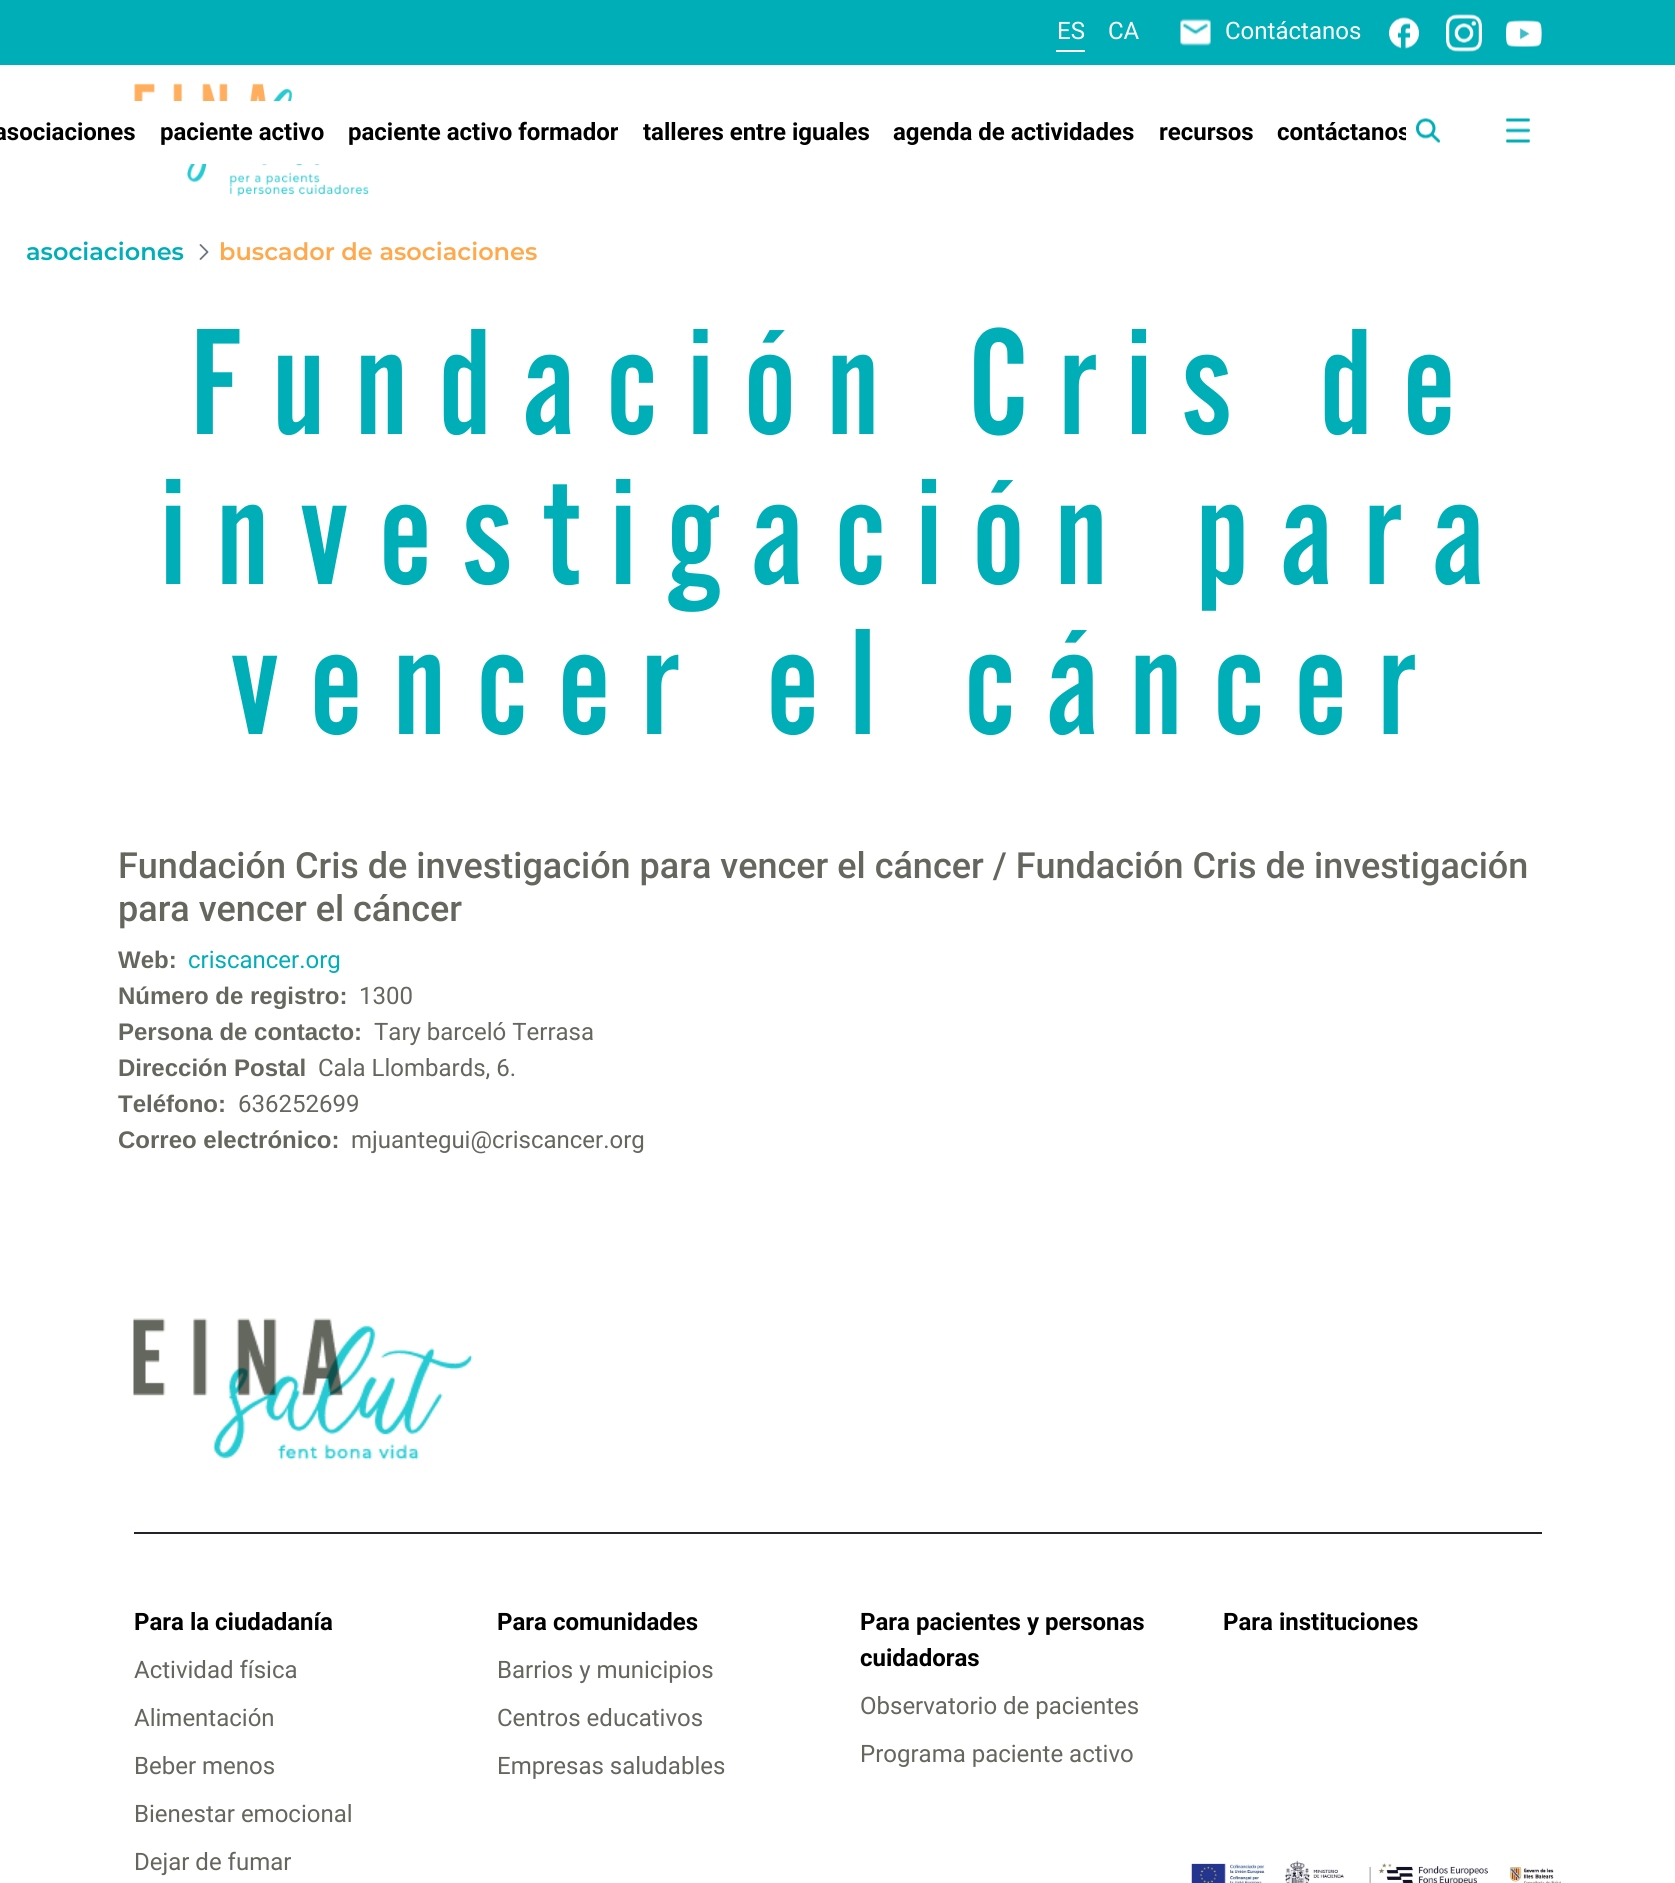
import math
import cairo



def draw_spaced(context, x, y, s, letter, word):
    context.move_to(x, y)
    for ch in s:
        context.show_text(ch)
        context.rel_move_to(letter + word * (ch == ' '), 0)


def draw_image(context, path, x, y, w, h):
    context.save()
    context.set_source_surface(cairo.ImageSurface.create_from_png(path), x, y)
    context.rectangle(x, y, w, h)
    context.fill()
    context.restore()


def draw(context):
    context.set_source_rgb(1, 1, 1)
    context.paint()
    context.set_source_rgb(0, 174 / 255, 184 / 255)
    context.rectangle(0, 0, 1675, 65)
    context.fill()
    context.set_source_rgb(1, 1, 1)
    context.rectangle(1056, 50, 29, 2)
    context.fill()
    draw_image(context, "images/1.png", 1180, 18, 31, 28)
    draw_image(context, "images/2.png", 1389, 17, 30, 32)
    draw_image(context, "images/3.png", 1446, 14, 36, 38)
    draw_image(context, "images/4.png", 1506, 20, 36, 27)
    draw_image(context, "images/5.png", 134, 83, 235, 114)
    draw_image(context, "images/6.png", 1416, 118, 24, 25)
    draw_image(context, "images/7.png", 1506, 118, 24, 25)
    context.rectangle(134, 101, 222, 63)
    context.fill()
    draw_image(context, "images/8.png", 199, 244, 10, 16)
    context.set_source_rgb(33 / 255, 37 / 255, 41 / 255)
    context.rectangle(134, 1532, 1408, 2)
    context.fill()
    draw_image(context, "images/9.png", 133, 1318, 340, 142)
    draw_image(context, "images/10.png", 1191, 1860, 370, 23)
    context.select_font_face("Roboto")
    context.set_font_size(24)
    context.set_source_rgb(1, 1, 1)
    context.move_to(1057, 39)
    context.show_text("ES")
    context.move_to(1108, 39)
    context.show_text("CA")
    context.move_to(1225, 39)
    context.show_text("Contáctanos")
    context.select_font_face("Roboto", cairo.FontSlant.NORMAL, cairo.FontWeight.BOLD)
    context.set_source_rgb(0, 0, 0)
    context.move_to(-6, 140)
    context.show_text("asociaciones")
    context.move_to(160, 140)
    context.show_text("paciente activo")
    context.save()
    context.rectangle(348, 114, 270, 36)
    context.clip()
    context.move_to(348, 140)
    context.show_text("paciente activo formador")
    context.restore()
    context.move_to(643, 140)
    context.show_text("talleres entre iguales")
    context.move_to(893, 140)
    context.show_text("agenda de actividades")
    context.move_to(1159, 140)
    context.show_text("recursos")
    context.move_to(1277, 140)
    context.show_text("contáctanos")
    context.set_source_rgb(1, 1, 1)
    context.rectangle(1406, 127, 4, 14)
    context.fill()
    context.select_font_face("Montserrat SemiBold")
    context.set_source_rgb(0, 174 / 255, 184 / 255)
    context.move_to(26, 260)
    context.show_text("asociaciones")
    context.set_source_rgb(1, 168 / 255, 76 / 255)
    context.move_to(219, 260)
    context.show_text("buscador de asociaciones")
    context.select_font_face("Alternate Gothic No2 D")
    context.set_font_size(157.5)
    context.set_source_rgb(0, 174 / 255, 184 / 255)
    draw_spaced(context, 190, 434, "Fundación Cris de", 30, 0)
    draw_spaced(context, 160, 584, "investigación para", 30, 0)
    draw_spaced(context, 230, 734, "vencer el cáncer", 30, 0)
    context.select_font_face("Roboto Medium")
    context.set_font_size(36)
    context.set_source_rgb(101 / 255, 102 / 255, 94 / 255)
    context.move_to(118, 878)
    context.show_text("Fundación Cris de investigación para vencer el cáncer / Fundación Cris de investigación")
    context.move_to(118, 921)
    context.show_text("para vencer el cáncer")
    context.select_font_face("Liberation Sans", cairo.FontSlant.NORMAL, cairo.FontWeight.BOLD)
    context.set_font_size(24)
    context.move_to(118, 968)
    context.show_text("Web:")
    context.select_font_face("Roboto")
    context.set_source_rgb(0, 174 / 255, 184 / 255)
    context.move_to(188, 968)
    context.show_text("criscancer.org")
    context.select_font_face("Liberation Sans", cairo.FontSlant.NORMAL, cairo.FontWeight.BOLD)
    context.set_source_rgb(101 / 255, 102 / 255, 94 / 255)
    context.move_to(118, 1004)
    context.show_text("Número de registro:")
    context.select_font_face("Roboto")
    context.move_to(359, 1004)
    context.show_text("1300")
    context.select_font_face("Liberation Sans", cairo.FontSlant.NORMAL, cairo.FontWeight.BOLD)
    context.move_to(118, 1040)
    context.show_text("Persona de contacto:")
    context.select_font_face("Roboto")
    context.move_to(374, 1040)
    context.show_text("Tary barceló Terrasa")
    context.select_font_face("Liberation Sans", cairo.FontSlant.NORMAL, cairo.FontWeight.BOLD)
    context.move_to(118, 1076)
    context.show_text("Dirección Postal")
    context.select_font_face("Roboto")
    context.move_to(318, 1076)
    context.show_text("Cala Llombards, 6.")
    context.select_font_face("Liberation Sans", cairo.FontSlant.NORMAL, cairo.FontWeight.BOLD)
    context.move_to(118, 1112)
    context.show_text("Teléfono:")
    context.select_font_face("Roboto")
    context.move_to(238, 1112)
    context.show_text("636252699")
    context.select_font_face("Liberation Sans", cairo.FontSlant.NORMAL, cairo.FontWeight.BOLD)
    context.move_to(118, 1148)
    context.show_text("Correo electrónico:")
    context.select_font_face("Roboto")
    context.move_to(351, 1148)
    context.show_text("mjuantegui@criscancer.org")
    context.select_font_face("Roboto", cairo.FontSlant.NORMAL, cairo.FontWeight.BOLD)
    context.set_source_rgb(0, 0, 0)
    context.move_to(134, 1630)
    context.show_text("Para la ciudadanía")
    context.select_font_face("Roboto")
    context.set_source_rgb(101 / 255, 102 / 255, 94 / 255)
    context.move_to(134, 1678)
    context.show_text("Actividad física")
    context.move_to(134, 1726)
    context.show_text("Alimentación")
    context.move_to(134, 1774)
    context.show_text("Beber menos")
    context.move_to(134, 1822)
    context.show_text("Bienestar emocional")
    context.move_to(134, 1870)
    context.show_text("Dejar de fumar")
    context.select_font_face("Roboto", cairo.FontSlant.NORMAL, cairo.FontWeight.BOLD)
    context.set_source_rgb(0, 0, 0)
    context.move_to(497, 1630)
    context.show_text("Para comunidades")
    context.select_font_face("Roboto")
    context.set_source_rgb(101 / 255, 102 / 255, 94 / 255)
    context.move_to(497, 1678)
    context.show_text("Barrios y municipios")
    context.move_to(497, 1726)
    context.show_text("Centros educativos")
    context.move_to(497, 1774)
    context.show_text("Empresas saludables")
    context.select_font_face("Roboto", cairo.FontSlant.NORMAL, cairo.FontWeight.BOLD)
    context.set_source_rgb(0, 0, 0)
    context.move_to(860, 1630)
    context.show_text("Para pacientes y personas")
    context.move_to(860, 1666)
    context.show_text("cuidadoras")
    context.select_font_face("Roboto")
    context.set_source_rgb(101 / 255, 102 / 255, 94 / 255)
    context.move_to(860, 1714)
    context.show_text("Observatorio de pacientes")
    context.move_to(860, 1762)
    context.show_text("Programa paciente activo")
    context.select_font_face("Roboto", cairo.FontSlant.NORMAL, cairo.FontWeight.BOLD)
    context.set_source_rgb(0, 0, 0)
    context.move_to(1223, 1630)
    context.show_text("Para instituciones")


surface = cairo.ImageSurface(cairo.Format.RGB24, 1675, 1883)
context = cairo.Context(surface)
options = cairo.FontOptions()
options.set_hint_metrics(cairo.HintMetrics.OFF)
options.set_hint_style(cairo.HintStyle.NONE)
context.set_font_options(options)
context.set_miter_limit(4)
draw(context)
surface.write_to_png("out.png")
